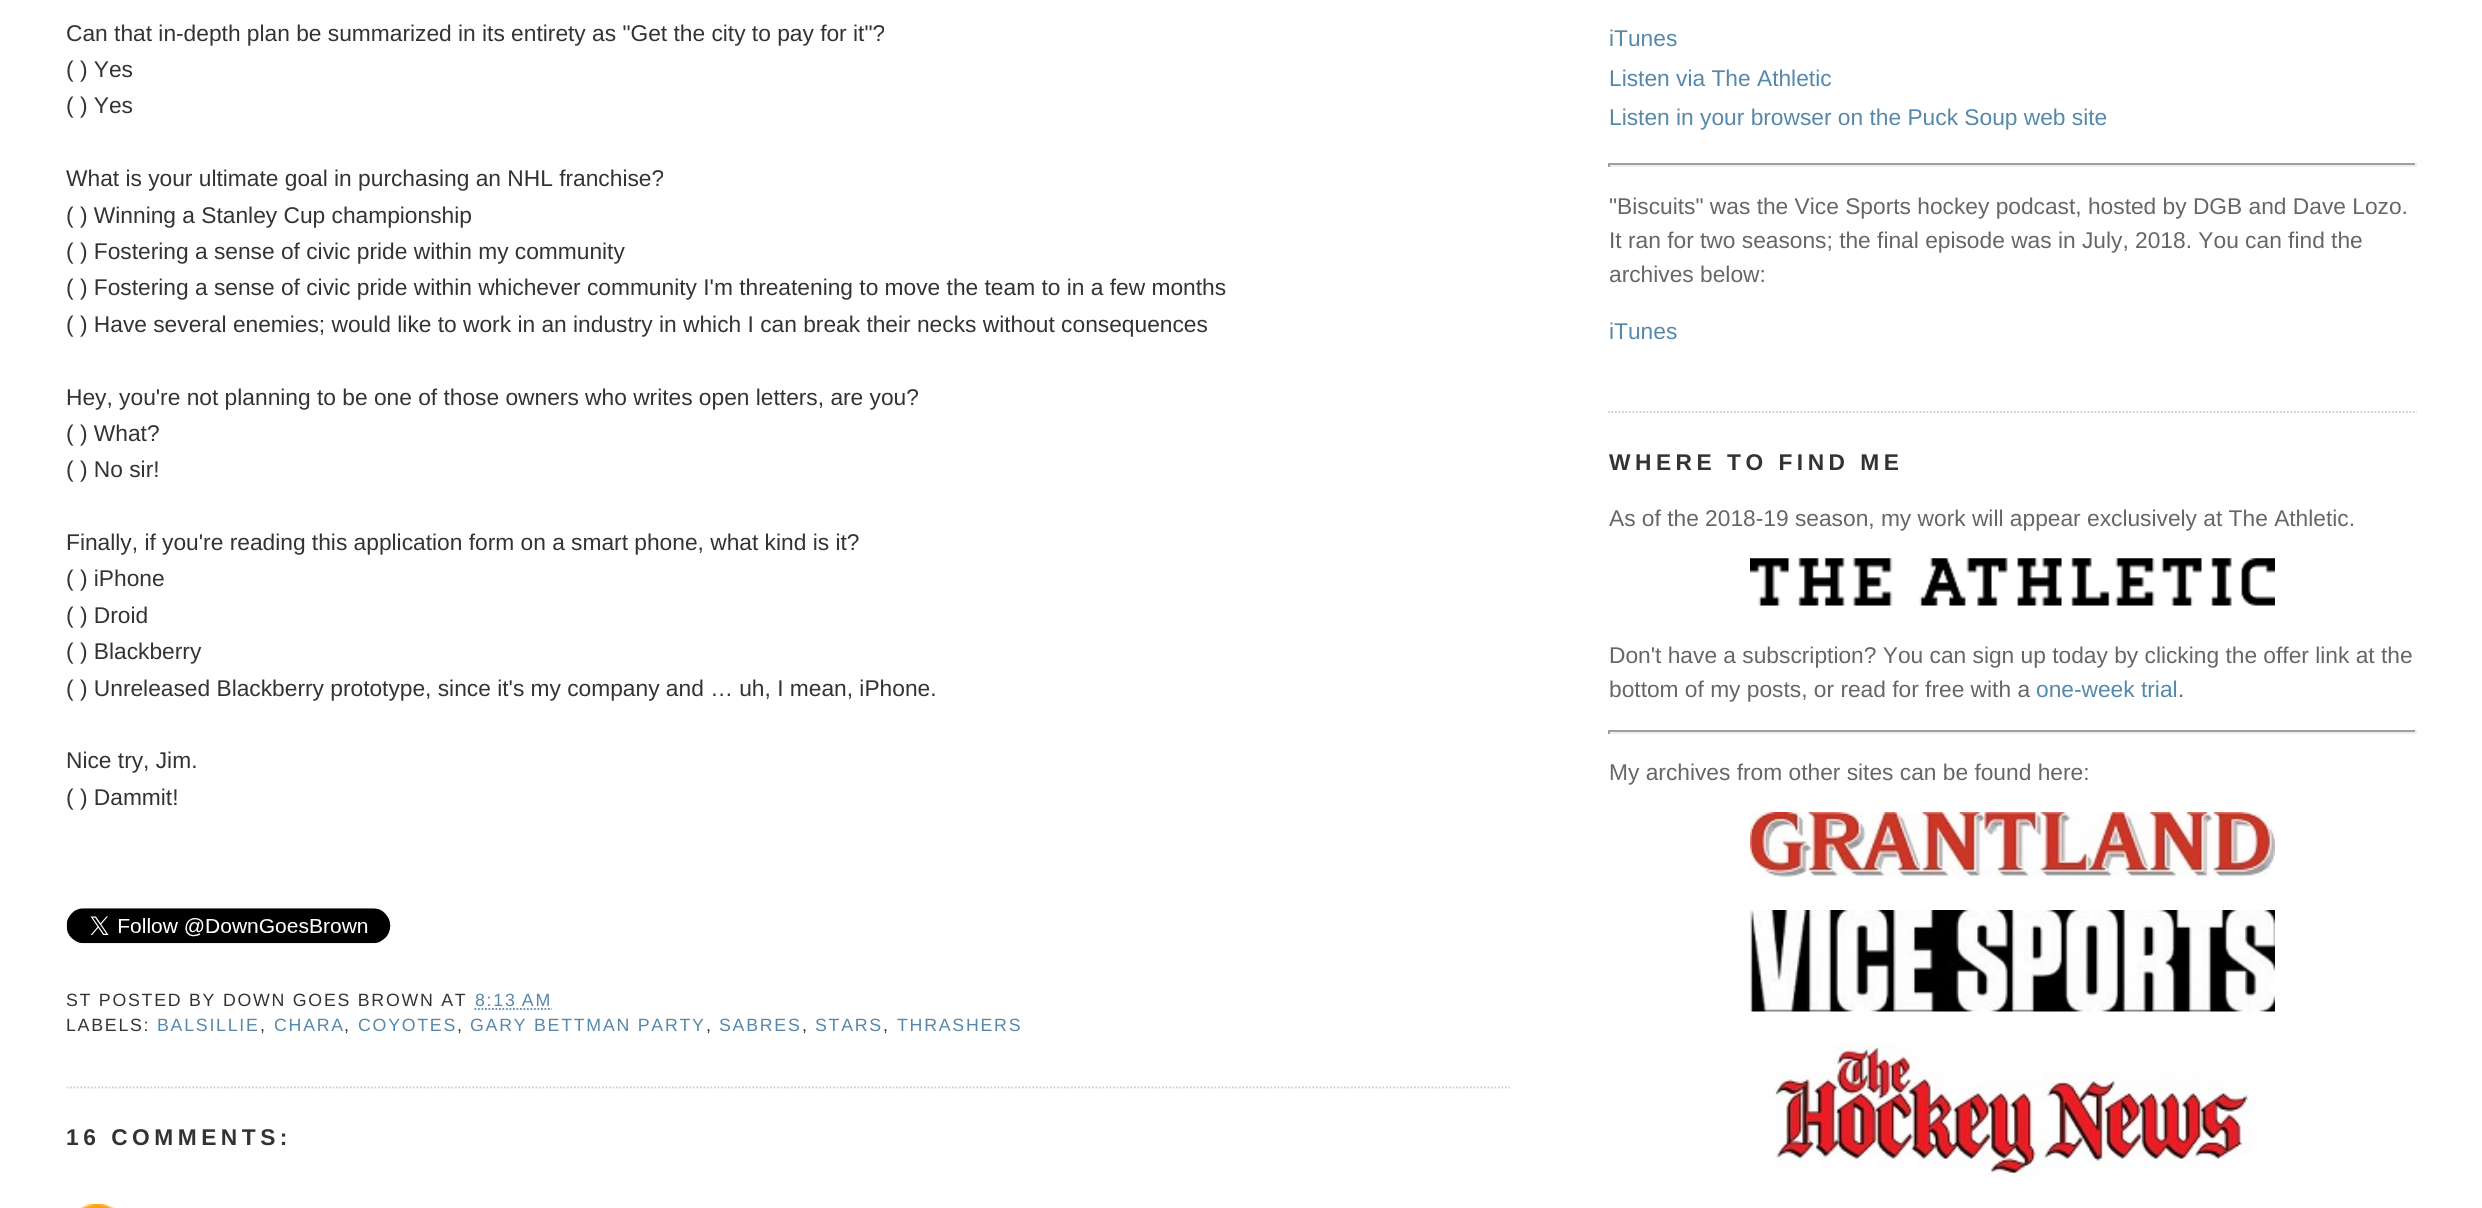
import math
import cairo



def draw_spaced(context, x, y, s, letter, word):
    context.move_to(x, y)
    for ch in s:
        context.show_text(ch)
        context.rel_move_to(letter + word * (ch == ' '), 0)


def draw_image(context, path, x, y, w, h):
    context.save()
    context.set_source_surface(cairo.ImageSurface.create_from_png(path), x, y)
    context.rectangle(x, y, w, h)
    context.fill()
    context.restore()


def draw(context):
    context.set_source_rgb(1, 1, 1)
    context.paint()
    context.save()
    context.rectangle(67, 0, 1443, 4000)
    context.clip()
    context.new_path()
    context.move_to(66.5, 1087.5)
    context.line_to(1510, 1087.5)
    context.set_source_rgb(204 / 255, 204 / 255, 204 / 255)
    context.set_line_width(1.8)
    context.set_dash([1.75, 1.75])
    context.stroke()
    context.restore()
    draw_image(context, "images/1.png", 66, 908, 325, 36)
    context.new_path()
    context.move_to(474.5, 1009)
    context.line_to(552, 1009)
    context.set_source_rgb(85 / 255, 136 / 255, 170 / 255)
    context.set_line_width(1.8)
    context.set_dash([1.75, 1.75])
    context.stroke()
    draw_image(context, "images/2.png", 79, 1204, 36, 4)
    context.new_path()
    context.move_to(1608, 412)
    context.line_to(2417, 412)
    context.set_source_rgb(204 / 255, 204 / 255, 204 / 255)
    context.stroke()
    context.set_source_rgb(159 / 255, 159 / 255, 159 / 255)
    context.rectangle(1608, 163, 809, 2)
    context.fill()
    context.set_source_rgb(238 / 255, 238 / 255, 238 / 255)
    context.rectangle(2415, 163, 2, 4)
    context.fill()
    context.rectangle(1608, 165, 809, 2)
    context.fill()
    context.set_source_rgb(159 / 255, 159 / 255, 159 / 255)
    context.rectangle(1608, 163, 2, 4)
    context.fill()
    draw_image(context, "images/3.png", 1750, 558, 525, 48)
    context.rectangle(1608, 730, 809, 2)
    context.fill()
    context.set_source_rgb(238 / 255, 238 / 255, 238 / 255)
    context.rectangle(2415, 730, 2, 4)
    context.fill()
    context.rectangle(1608, 732, 809, 2)
    context.fill()
    context.set_source_rgb(159 / 255, 159 / 255, 159 / 255)
    context.rectangle(1608, 730, 2, 4)
    context.fill()
    draw_image(context, "images/4.png", 1750, 812, 525, 65)
    draw_image(context, "images/5.png", 1750, 910, 525, 102)
    draw_image(context, "images/6.png", 1768, 1043, 486, 135)
    context.select_font_face("Liberation Sans")
    context.set_font_size(22.75)
    context.set_source_rgb(51 / 255, 51 / 255, 51 / 255)
    context.move_to(66, 41)
    context.show_text("Can that in-depth plan be summarized in its entirety as \"Get the city to pay for it\"?")
    context.move_to(66, 77)
    context.show_text("( ) Yes")
    context.move_to(66, 113)
    context.show_text("( ) Yes")
    context.move_to(66, 186)
    context.show_text("What is your ultimate goal in purchasing an NHL franchise?")
    context.move_to(66, 223)
    context.show_text("( ) Winning a Stanley Cup championship")
    context.move_to(66, 259)
    context.show_text("( ) Fostering a sense of civic pride within my community")
    context.move_to(66, 295)
    context.show_text("( ) Fostering a sense of civic pride within whichever community I'm threatening to move the team to in a few months")
    context.move_to(66, 332)
    context.show_text("( ) Have several enemies; would like to work in an industry in which I can break their necks without consequences")
    context.move_to(66, 405)
    context.show_text("Hey, you're not planning to be one of those owners who writes open letters, are you?")
    context.move_to(66, 441)
    context.show_text("( ) What?")
    context.move_to(66, 477)
    context.show_text("( ) No sir!")
    context.move_to(66, 550)
    context.show_text("Finally, if you're reading this application form on a smart phone, what kind is it?")
    context.move_to(66, 586)
    context.show_text("( ) iPhone")
    context.move_to(66, 623)
    context.show_text("( ) Droid")
    context.move_to(66, 659)
    context.show_text("( ) Blackberry")
    context.move_to(66, 696)
    context.show_text("( ) Unreleased Blackberry prototype, since it's my company and … uh, I mean, iPhone.")
    context.move_to(66, 768)
    context.show_text("Nice try, Jim.")
    context.move_to(66, 805)
    context.show_text("( ) Dammit!")
    context.set_font_size(17.75)
    draw_spaced(context, 66, 1006, "ST POSTED BY DOWN GOES BROWN AT", 1.75, 0)
    context.set_source_rgb(85 / 255, 136 / 255, 170 / 255)
    draw_spaced(context, 475, 1006, "8:13 AM", 1.75, 0)
    context.set_source_rgb(51 / 255, 51 / 255, 51 / 255)
    draw_spaced(context, 66, 1031, "LABELS:", 1.75, 0)
    context.set_source_rgb(85 / 255, 136 / 255, 170 / 255)
    draw_spaced(context, 157, 1031, "BALSILLIE", 1.75, 0)
    context.set_source_rgb(51 / 255, 51 / 255, 51 / 255)
    draw_spaced(context, 260, 1031, ",", 1.75, 0)
    context.set_source_rgb(85 / 255, 136 / 255, 170 / 255)
    draw_spaced(context, 274, 1031, "CHARA", 1.75, 0)
    context.set_source_rgb(51 / 255, 51 / 255, 51 / 255)
    draw_spaced(context, 344, 1031, ",", 1.75, 0)
    context.set_source_rgb(85 / 255, 136 / 255, 170 / 255)
    draw_spaced(context, 358, 1031, "COYOTES", 1.75, 0)
    context.set_source_rgb(51 / 255, 51 / 255, 51 / 255)
    draw_spaced(context, 457, 1031, ",", 1.75, 0)
    context.set_source_rgb(85 / 255, 136 / 255, 170 / 255)
    draw_spaced(context, 470, 1031, "GARY BETTMAN PARTY", 1.75, 0)
    context.set_source_rgb(51 / 255, 51 / 255, 51 / 255)
    draw_spaced(context, 706, 1031, ",", 1.75, 0)
    context.set_source_rgb(85 / 255, 136 / 255, 170 / 255)
    draw_spaced(context, 719, 1031, "SABRES", 1.75, 0)
    context.set_source_rgb(51 / 255, 51 / 255, 51 / 255)
    draw_spaced(context, 802, 1031, ",", 1.75, 0)
    context.set_source_rgb(85 / 255, 136 / 255, 170 / 255)
    draw_spaced(context, 815, 1031, "STARS", 1.75, 0)
    context.set_source_rgb(51 / 255, 51 / 255, 51 / 255)
    draw_spaced(context, 883, 1031, ",", 1.75, 0)
    context.set_source_rgb(85 / 255, 136 / 255, 170 / 255)
    draw_spaced(context, 897, 1031, "THRASHERS", 1.75, 0)
    context.select_font_face("Liberation Sans", cairo.FontSlant.NORMAL, cairo.FontWeight.BOLD)
    context.set_font_size(22.75)
    context.set_source_rgb(51 / 255, 51 / 255, 51 / 255)
    draw_spaced(context, 66, 1145, "16 COMMENTS:", 4.5, 0)
    context.select_font_face("Liberation Sans")
    context.set_source_rgb(85 / 255, 136 / 255, 170 / 255)
    context.move_to(1609, 46)
    context.show_text("iTunes")
    context.move_to(1609, 86)
    context.show_text("Listen via The Athletic")
    context.move_to(1609, 125)
    context.show_text("Listen in your browser on the Puck Soup web site")
    context.set_source_rgb(102 / 255, 102 / 255, 102 / 255)
    context.move_to(1609, 214)
    context.show_text("\"Biscuits\" was the Vice Sports hockey podcast, hosted by DGB and Dave Lozo.")
    context.move_to(1609, 248)
    context.show_text("It ran for two seasons; the final episode was in July, 2018. You can find the")
    context.move_to(1609, 282)
    context.show_text("archives below:")
    context.set_source_rgb(85 / 255, 136 / 255, 170 / 255)
    context.move_to(1609, 339)
    context.show_text("iTunes")
    context.select_font_face("Liberation Sans", cairo.FontSlant.NORMAL, cairo.FontWeight.BOLD)
    context.set_source_rgb(51 / 255, 51 / 255, 51 / 255)
    draw_spaced(context, 1609, 470, "WHERE TO FIND ME", 4.5, 0)
    context.select_font_face("Liberation Sans")
    context.set_source_rgb(102 / 255, 102 / 255, 102 / 255)
    context.move_to(1609, 526)
    context.show_text("As of the 2018-19 season, my work will appear exclusively at The Athletic.")
    context.move_to(1609, 663)
    context.show_text("Don't have a subscription? You can sign up today by clicking the offer link at the")
    context.move_to(1609, 697)
    context.show_text("bottom of my posts, or read for free with a")
    context.set_source_rgb(85 / 255, 136 / 255, 170 / 255)
    context.move_to(2036, 697)
    context.show_text("one-week trial")
    context.set_source_rgb(102 / 255, 102 / 255, 102 / 255)
    context.move_to(2178, 697)
    context.show_text(".")
    context.move_to(1609, 780)
    context.show_text("My archives from other sites can be found here:")


surface = cairo.ImageSurface(cairo.Format.RGB24, 2482, 1208)
context = cairo.Context(surface)
options = cairo.FontOptions()
options.set_hint_metrics(cairo.HintMetrics.OFF)
options.set_hint_style(cairo.HintStyle.NONE)
context.set_font_options(options)
context.set_miter_limit(4)
draw(context)
surface.write_to_png("out.png")
